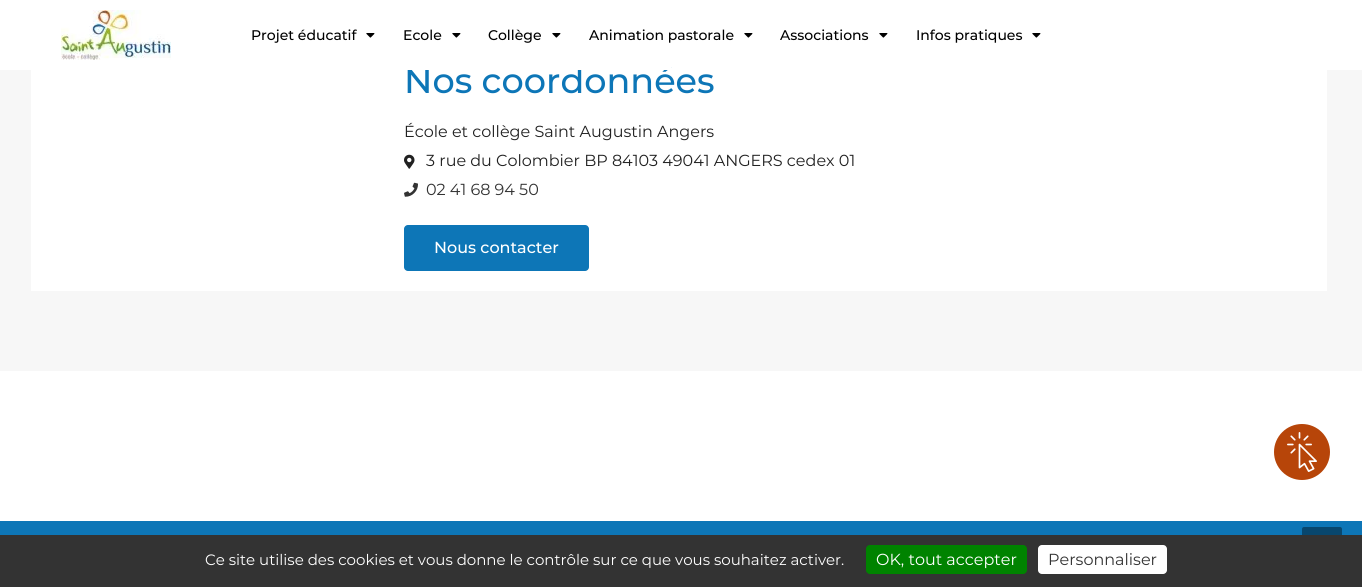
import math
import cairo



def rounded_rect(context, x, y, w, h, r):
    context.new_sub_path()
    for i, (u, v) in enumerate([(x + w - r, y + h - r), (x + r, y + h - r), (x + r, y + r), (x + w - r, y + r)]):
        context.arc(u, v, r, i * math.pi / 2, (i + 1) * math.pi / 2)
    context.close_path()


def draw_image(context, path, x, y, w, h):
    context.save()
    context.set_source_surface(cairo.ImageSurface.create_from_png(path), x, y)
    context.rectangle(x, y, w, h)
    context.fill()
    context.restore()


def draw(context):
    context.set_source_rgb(1, 1, 1)
    context.paint()
    draw_image(context, "images/1.png", 61, 10, 110, 50)
    draw_image(context, "images/2.png", 366, 33, 9, 5)
    draw_image(context, "images/2.png", 452, 33, 9, 5)
    draw_image(context, "images/2.png", 552, 33, 9, 5)
    draw_image(context, "images/2.png", 744, 33, 9, 5)
    draw_image(context, "images/2.png", 879, 33, 9, 5)
    draw_image(context, "images/2.png", 1032, 33, 9, 5)
    context.set_source_rgb(183 / 255, 69 / 255, 9 / 255)
    context.arc(1302, 452, 28, 0, 2 * math.pi)
    context.fill()
    draw_image(context, "images/3.png", 1287, 432, 30, 40)
    context.set_source_rgb(247 / 255, 247 / 255, 247 / 255)
    context.rectangle(0, 70, 1362, 301)
    context.fill()
    context.set_source_rgb(1, 1, 1)
    context.rectangle(31, 70, 1296, 221)
    context.fill()
    draw_image(context, "images/4.png", 404, 154, 11, 15)
    draw_image(context, "images/5.png", 404, 182, 14, 15)
    context.set_source_rgb(13 / 255, 118 / 255, 183 / 255)
    rounded_rect(context, 404, 225, 185, 46, 4)
    context.fill()
    context.rectangle(0, 521, 1362, 14)
    context.fill()
    context.set_source_rgb(8 / 255, 71 / 255, 110 / 255)
    rounded_rect(context, 1302, 527, 40, 40, 2)
    context.fill()
    context.set_source_rgb(51 / 255, 51 / 255, 51 / 255)
    context.rectangle(0, 535, 1362, 52)
    context.fill()
    context.set_source_rgb(0, 131 / 255, 0)
    rounded_rect(context, 866, 545, 161, 29, 4)
    context.fill()
    context.set_source_rgb(1, 1, 1)
    rounded_rect(context, 1038, 545, 129, 29, 4)
    context.fill()
    context.select_font_face("Montserrat Medium")
    context.set_font_size(14)
    context.set_source_rgb(0, 0, 0)
    context.move_to(251, 40)
    context.show_text("Projet éducatif")
    context.move_to(403, 40)
    context.show_text("Ecole")
    context.move_to(488, 40)
    context.show_text("Collège")
    context.move_to(589, 40)
    context.show_text("Animation pastorale")
    context.move_to(780, 40)
    context.show_text("Associations")
    context.move_to(916, 40)
    context.show_text("Infos pratiques")
    context.set_font_size(35)
    context.set_source_rgb(13 / 255, 118 / 255, 183 / 255)
    context.move_to(404, 93)
    context.show_text("Nos coordonnées")
    context.set_source_rgb(1, 1, 1)
    context.rectangle(407, 67, 264, 3)
    context.fill()
    context.select_font_face("Montserrat")
    context.set_font_size(16)
    context.set_source_rgb(33 / 255, 33 / 255, 33 / 255)
    context.move_to(404, 137)
    context.show_text("École et collège Saint Augustin Angers")
    context.move_to(426, 166)
    context.show_text("3 rue du Colombier BP 84103 49041 ANGERS cedex 01")
    context.set_source_rgb(51 / 255, 51 / 255, 51 / 255)
    context.move_to(426, 195)
    context.show_text("02 41 68 94 50")
    context.select_font_face("Montserrat Medium")
    context.set_source_rgb(1, 1, 1)
    context.move_to(434, 253)
    context.show_text("Nous contacter")
    context.select_font_face("Montserrat")
    context.set_font_size(15)
    context.move_to(205, 565)
    context.show_text("Ce site utilise des cookies et vous donne le contrôle sur ce que vous souhaitez activer.")
    context.set_font_size(16)
    context.move_to(876, 565)
    context.show_text("OK, tout accepter")
    context.set_source_rgb(51 / 255, 51 / 255, 51 / 255)
    context.move_to(1048, 565)
    context.show_text("Personnaliser")


surface = cairo.ImageSurface(cairo.Format.RGB24, 1362, 587)
context = cairo.Context(surface)
options = cairo.FontOptions()
options.set_hint_metrics(cairo.HintMetrics.OFF)
options.set_hint_style(cairo.HintStyle.NONE)
context.set_font_options(options)
context.set_miter_limit(4)
draw(context)
surface.write_to_png("out.png")
